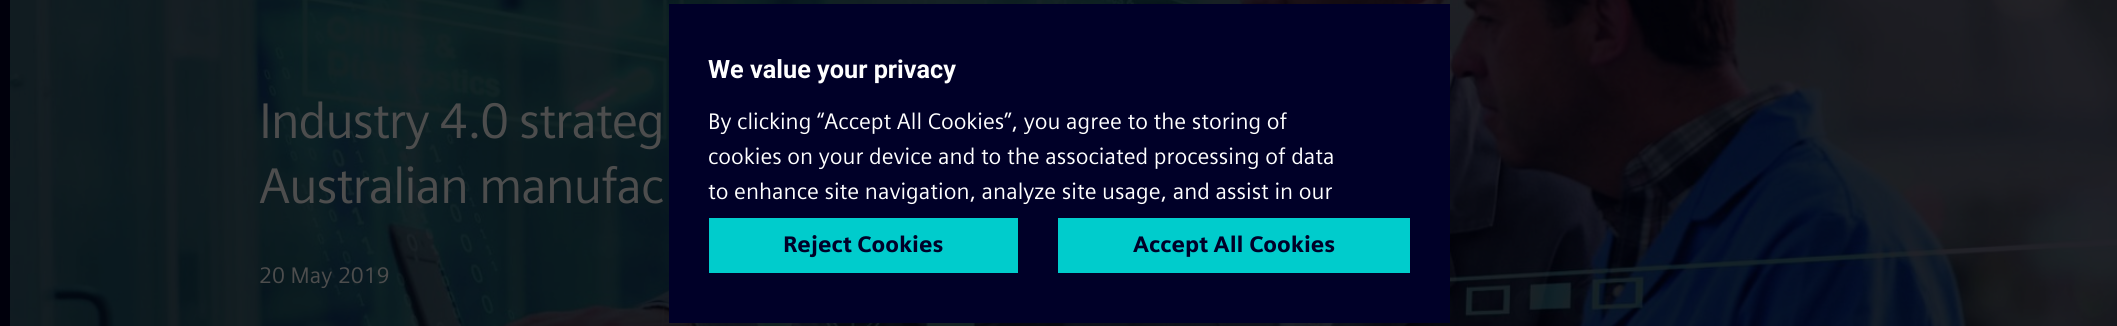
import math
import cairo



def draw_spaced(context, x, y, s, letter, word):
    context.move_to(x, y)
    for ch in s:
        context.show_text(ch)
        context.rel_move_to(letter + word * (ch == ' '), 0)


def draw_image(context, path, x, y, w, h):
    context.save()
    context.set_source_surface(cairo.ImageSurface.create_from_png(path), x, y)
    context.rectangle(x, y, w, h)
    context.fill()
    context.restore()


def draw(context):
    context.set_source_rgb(0, 0, 12 / 255)
    context.paint()
    draw_image(context, "images/1.png", 10, 0, 2107, 326)
    context.set_source_rgb(0, 0, 40 / 255)
    context.rectangle(669, 4, 781, 319)
    context.fill()
    context.set_source_rgb(0, 204 / 255, 204 / 255)
    context.rectangle(709, 218, 309, 55)
    context.fill()
    context.rectangle(1058, 218, 352, 55)
    context.fill()
    context.select_font_face("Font")
    context.set_font_size(50)
    context.set_source_rgb(77 / 255, 77 / 255, 77 / 255)
    draw_spaced(context, 259, 138, "Industry 4.0 strateg", -1.25, 0)
    draw_spaced(context, 259, 203, "Australian manufac", -1.25, 0)
    context.set_font_size(22.5)
    context.move_to(259, 283)
    context.show_text("20 May 2019")
    context.select_font_face("Roboto", cairo.FontSlant.NORMAL, cairo.FontWeight.BOLD)
    context.set_font_size(25.25)
    context.set_source_rgb(1, 1, 1)
    context.move_to(708, 78)
    context.show_text("We value your privacy")
    context.select_font_face("Font")
    context.set_font_size(22.5)
    context.move_to(708, 129)
    context.show_text("By clicking “Accept All Cookies”, you agree to the storing of")
    context.move_to(708, 164)
    context.show_text("cookies on your device and to the associated processing of data")
    context.move_to(708, 199)
    context.show_text("to enhance site navigation, analyze site usage, and assist in our")
    context.select_font_face("Font", cairo.FontSlant.NORMAL, cairo.FontWeight.BOLD)
    context.set_source_rgb(0, 0, 40 / 255)
    context.move_to(783, 252)
    context.show_text("Reject Cookies")
    context.move_to(1133, 252)
    context.show_text("Accept All Cookies")


surface = cairo.ImageSurface(cairo.Format.RGB24, 2117, 326)
context = cairo.Context(surface)
options = cairo.FontOptions()
options.set_hint_metrics(cairo.HintMetrics.OFF)
options.set_hint_style(cairo.HintStyle.NONE)
context.set_font_options(options)
context.set_miter_limit(4)
draw(context)
surface.write_to_png("out.png")
